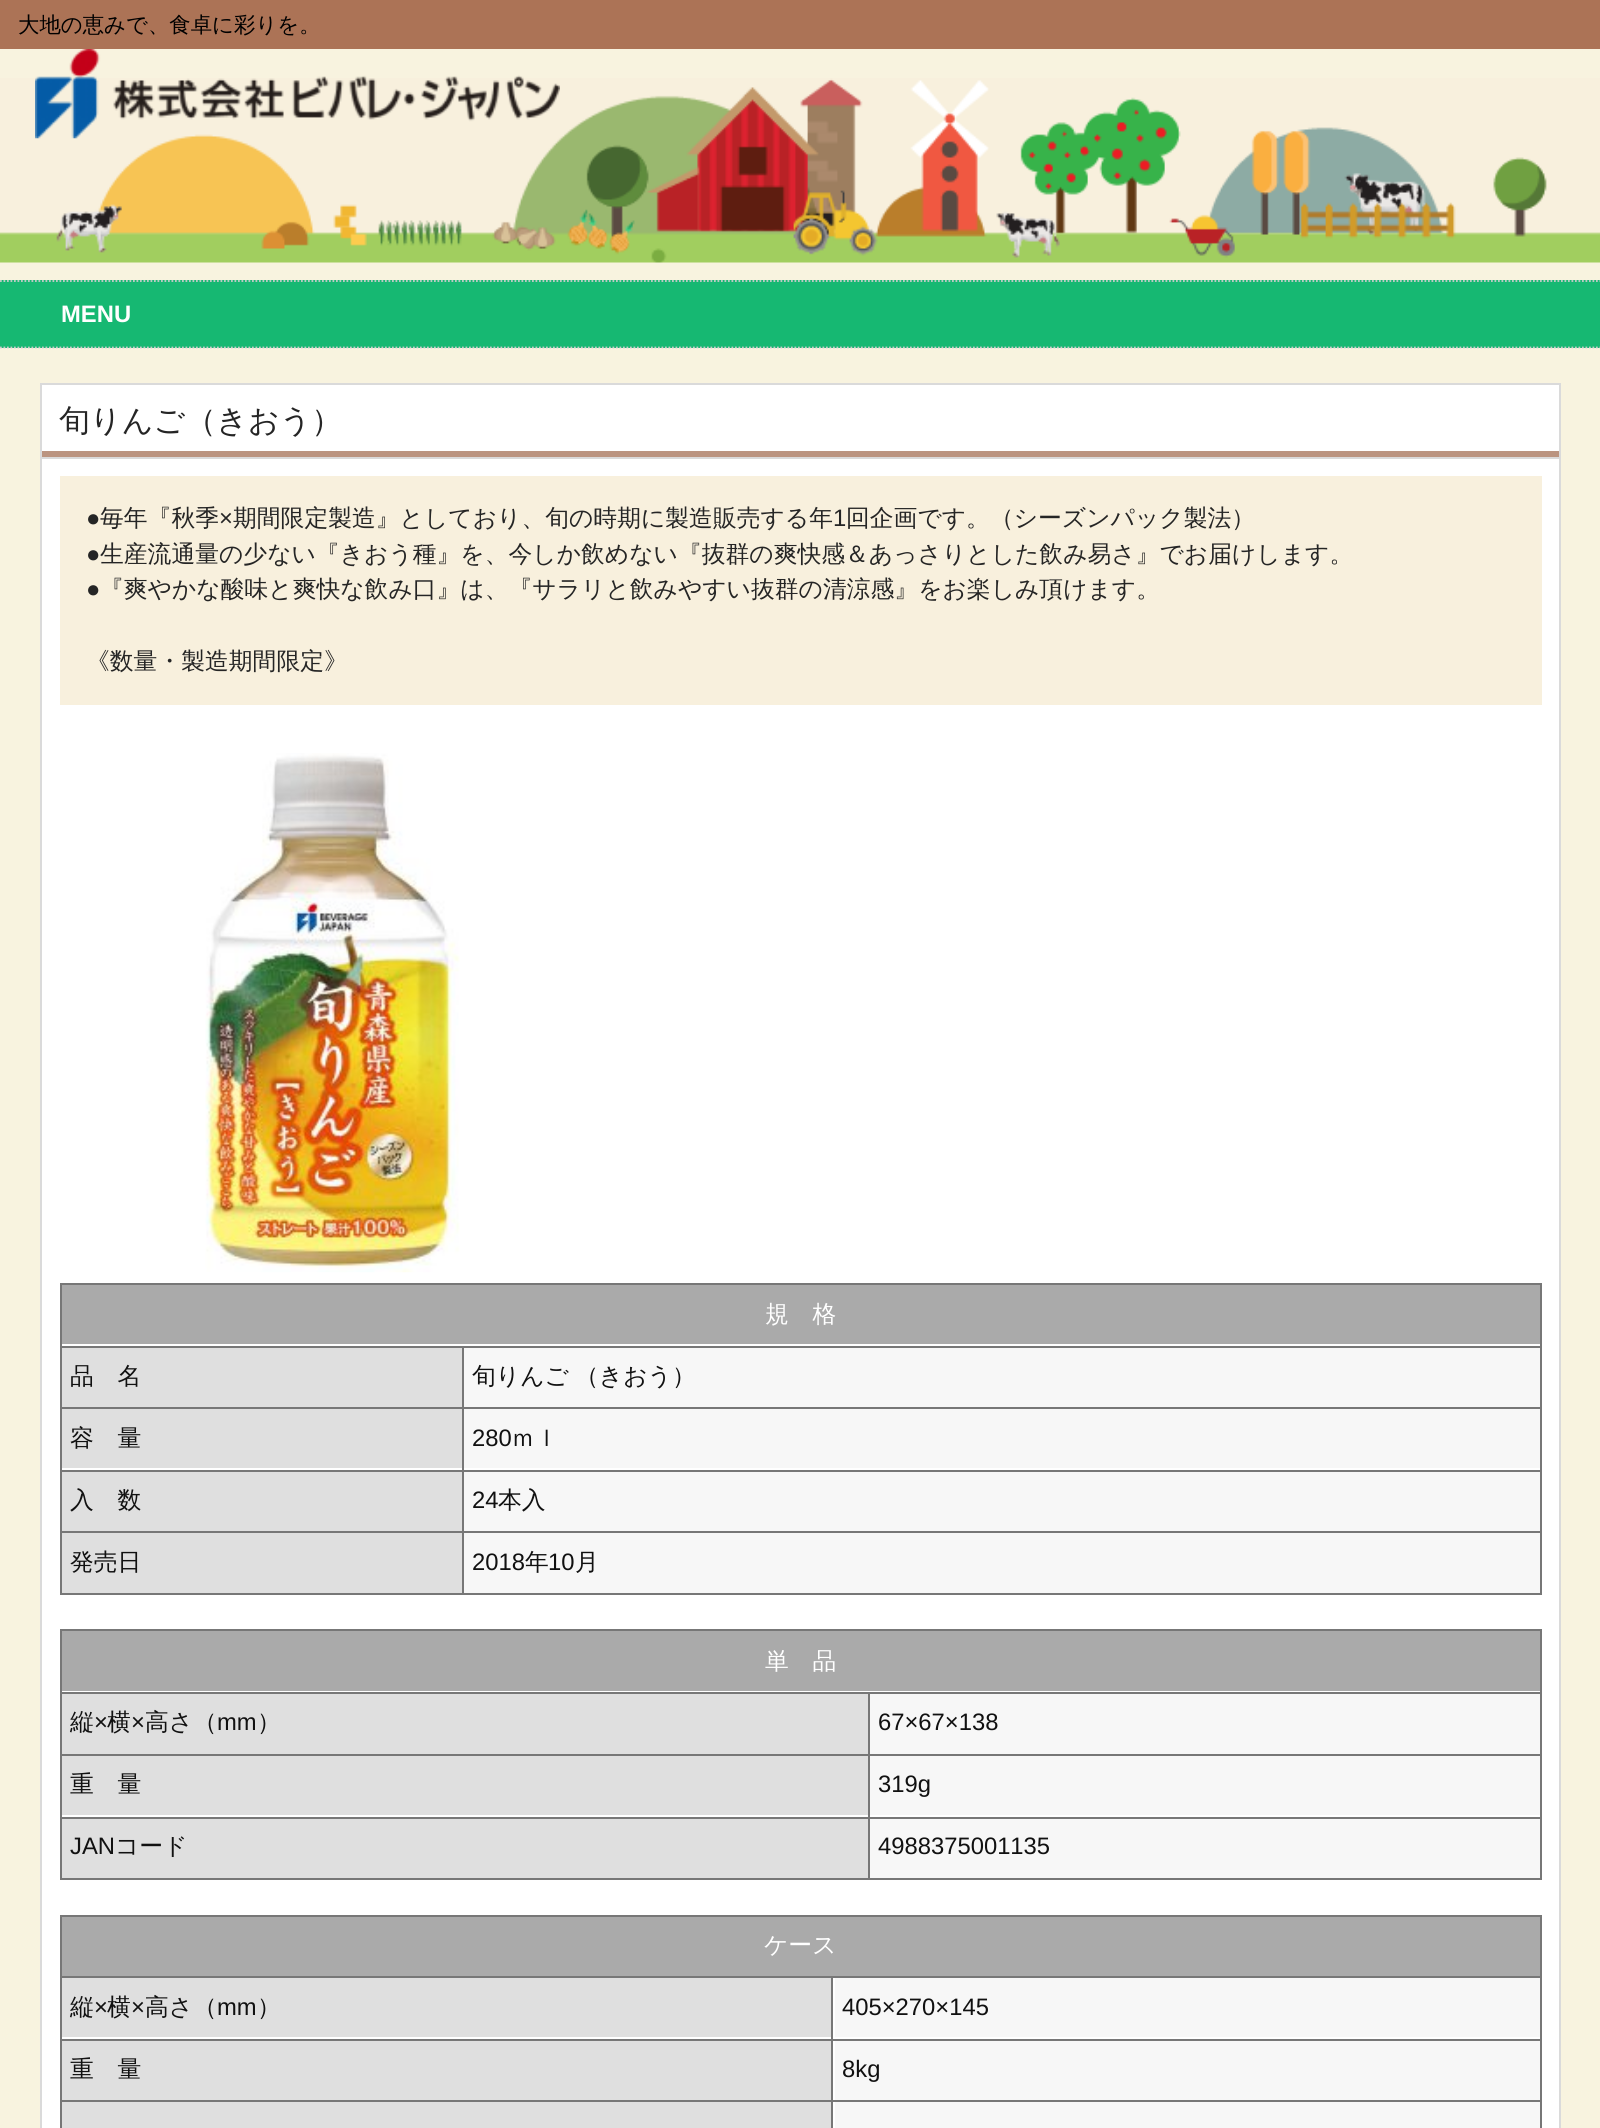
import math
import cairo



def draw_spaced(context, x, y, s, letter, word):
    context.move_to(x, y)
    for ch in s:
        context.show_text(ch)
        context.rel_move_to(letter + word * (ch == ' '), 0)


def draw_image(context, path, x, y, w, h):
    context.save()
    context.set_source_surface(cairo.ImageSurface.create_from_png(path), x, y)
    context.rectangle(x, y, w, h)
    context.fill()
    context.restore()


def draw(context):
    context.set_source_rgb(248 / 255, 243 / 255, 223 / 255)
    context.paint()
    draw_image(context, "images/1.png", 0, 78, 1600, 185)
    context.set_source_rgb(172 / 255, 115 / 255, 86 / 255)
    context.rectangle(0, 0, 1600, 49)
    context.fill()
    draw_image(context, "images/2.png", 35, 49, 525, 90)
    context.set_source_rgb(22 / 255, 184 / 255, 114 / 255)
    context.rectangle(0, 280, 1600, 68)
    context.fill()
    context.new_path()
    context.move_to(0, 281)
    context.line_to(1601, 281)
    context.set_source_rgb(204 / 255, 204 / 255, 204 / 255)
    context.set_line_width(1.8)
    context.set_dash([1.75, 1.75])
    context.stroke()
    context.new_path()
    context.move_to(0, 347.5)
    context.line_to(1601, 347.5)
    context.stroke()
    context.set_source_rgb(1, 1, 1)
    context.rectangle(42, 385, 1517, 66)
    context.fill()
    context.set_source_rgb(187 / 255, 148 / 255, 128 / 255)
    context.rectangle(40, 451, 1521, 6)
    context.fill()
    context.set_source_rgb(218 / 255, 218 / 255, 218 / 255)
    context.rectangle(40, 383, 1521, 2)
    context.fill()
    context.rectangle(1559, 383, 2, 74)
    context.fill()
    context.rectangle(40, 383, 2, 74)
    context.fill()
    context.set_source_rgb(1, 1, 1)
    context.rectangle(41, 458, 1519, 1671)
    context.fill_preserve()
    context.set_source_rgb(218 / 255, 218 / 255, 218 / 255)
    context.set_line_width(2)
    context.set_dash([])
    context.stroke()
    context.set_source_rgb(248 / 255, 240 / 255, 221 / 255)
    context.rectangle(60, 476, 1482, 229)
    context.fill()
    draw_image(context, "images/3.png", 205, 753, 255, 520)
    context.set_source_rgb(119 / 255, 119 / 255, 119 / 255)
    context.rectangle(60, 1283, 1482, 2)
    context.fill()
    context.rectangle(1540, 1283, 2, 311)
    context.fill()
    context.rectangle(60, 1593, 1482, 2)
    context.fill()
    context.rectangle(60, 1283, 2, 311)
    context.fill()
    context.set_source_rgb(170 / 255, 170 / 255, 170 / 255)
    context.rectangle(62, 1285, 1478, 59)
    context.fill()
    context.set_source_rgb(119 / 255, 119 / 255, 119 / 255)
    context.rectangle(462, 1531, 2, 63)
    context.fill()
    context.rectangle(462, 1531, 1080, 2)
    context.fill()
    context.rectangle(462, 1470, 2, 63)
    context.fill()
    context.rectangle(462, 1470, 1080, 2)
    context.fill()
    context.rectangle(462, 1407, 2, 65)
    context.fill()
    context.rectangle(462, 1407, 1080, 2)
    context.fill()
    context.rectangle(462, 1346, 2, 63)
    context.fill()
    context.rectangle(60, 1346, 1482, 2)
    context.fill()
    context.set_source_rgb(223 / 255, 223 / 255, 223 / 255)
    context.rectangle(62, 1348, 400, 59)
    context.fill()
    context.set_source_rgb(119 / 255, 119 / 255, 119 / 255)
    context.rectangle(60, 1407, 404, 2)
    context.fill()
    context.set_source_rgb(247 / 255, 247 / 255, 247 / 255)
    context.rectangle(464, 1348, 1076, 59)
    context.fill()
    context.set_source_rgb(223 / 255, 223 / 255, 223 / 255)
    context.rectangle(62, 1409, 400, 59)
    context.fill()
    context.set_source_rgb(119 / 255, 119 / 255, 119 / 255)
    context.rectangle(60, 1470, 404, 2)
    context.fill()
    context.set_source_rgb(247 / 255, 247 / 255, 247 / 255)
    context.rectangle(464, 1409, 1076, 59)
    context.fill()
    context.set_source_rgb(223 / 255, 223 / 255, 223 / 255)
    context.rectangle(62, 1472, 400, 59)
    context.fill()
    context.set_source_rgb(119 / 255, 119 / 255, 119 / 255)
    context.rectangle(60, 1531, 404, 2)
    context.fill()
    context.set_source_rgb(247 / 255, 247 / 255, 247 / 255)
    context.rectangle(464, 1472, 1076, 59)
    context.fill()
    context.set_source_rgb(223 / 255, 223 / 255, 223 / 255)
    context.rectangle(62, 1533, 400, 60)
    context.fill()
    context.set_source_rgb(247 / 255, 247 / 255, 247 / 255)
    context.rectangle(464, 1533, 1076, 60)
    context.fill()
    context.set_source_rgb(119 / 255, 119 / 255, 119 / 255)
    context.rectangle(60, 1629, 1482, 2)
    context.fill()
    context.rectangle(1540, 1629, 2, 251)
    context.fill()
    context.rectangle(60, 1878, 1482, 2)
    context.fill()
    context.rectangle(60, 1629, 2, 251)
    context.fill()
    context.set_source_rgb(170 / 255, 170 / 255, 170 / 255)
    context.rectangle(62, 1631, 1478, 60)
    context.fill()
    context.set_source_rgb(119 / 255, 119 / 255, 119 / 255)
    context.rectangle(868, 1817, 2, 63)
    context.fill()
    context.rectangle(868, 1817, 674, 2)
    context.fill()
    context.rectangle(868, 1754, 2, 64)
    context.fill()
    context.rectangle(868, 1754, 674, 2)
    context.fill()
    context.rectangle(868, 1692, 2, 63)
    context.fill()
    context.rectangle(60, 1692, 1482, 2)
    context.fill()
    context.set_source_rgb(223 / 255, 223 / 255, 223 / 255)
    context.rectangle(62, 1694, 806, 60)
    context.fill()
    context.set_source_rgb(119 / 255, 119 / 255, 119 / 255)
    context.rectangle(60, 1754, 810, 2)
    context.fill()
    context.set_source_rgb(247 / 255, 247 / 255, 247 / 255)
    context.rectangle(870, 1694, 670, 60)
    context.fill()
    context.set_source_rgb(223 / 255, 223 / 255, 223 / 255)
    context.rectangle(62, 1756, 806, 59)
    context.fill()
    context.set_source_rgb(119 / 255, 119 / 255, 119 / 255)
    context.rectangle(60, 1817, 810, 2)
    context.fill()
    context.set_source_rgb(247 / 255, 247 / 255, 247 / 255)
    context.rectangle(870, 1756, 670, 59)
    context.fill()
    context.set_source_rgb(223 / 255, 223 / 255, 223 / 255)
    context.rectangle(62, 1819, 806, 59)
    context.fill()
    context.set_source_rgb(247 / 255, 247 / 255, 247 / 255)
    context.rectangle(870, 1819, 670, 59)
    context.fill()
    context.set_source_rgb(119 / 255, 119 / 255, 119 / 255)
    context.rectangle(60, 1915, 1482, 2)
    context.fill()
    context.rectangle(1540, 1915, 2, 213)
    context.fill()
    context.rectangle(60, 1915, 2, 213)
    context.fill()
    context.set_source_rgb(170 / 255, 170 / 255, 170 / 255)
    context.rectangle(62, 1917, 1478, 59)
    context.fill()
    context.set_source_rgb(119 / 255, 119 / 255, 119 / 255)
    context.rectangle(831, 2100, 2, 28)
    context.fill()
    context.rectangle(831, 2100, 711, 2)
    context.fill()
    context.rectangle(831, 2039, 2, 63)
    context.fill()
    context.rectangle(831, 2039, 711, 2)
    context.fill()
    context.rectangle(831, 1976, 2, 65)
    context.fill()
    context.rectangle(60, 1976, 1482, 2)
    context.fill()
    context.set_source_rgb(223 / 255, 223 / 255, 223 / 255)
    context.rectangle(62, 1978, 769, 59)
    context.fill()
    context.set_source_rgb(119 / 255, 119 / 255, 119 / 255)
    context.rectangle(60, 2039, 773, 2)
    context.fill()
    context.set_source_rgb(247 / 255, 247 / 255, 247 / 255)
    context.rectangle(835, 1978, 705, 59)
    context.fill()
    context.set_source_rgb(223 / 255, 223 / 255, 223 / 255)
    context.rectangle(62, 2041, 769, 59)
    context.fill()
    context.set_source_rgb(119 / 255, 119 / 255, 119 / 255)
    context.rectangle(60, 2100, 773, 2)
    context.fill()
    context.set_source_rgb(247 / 255, 247 / 255, 247 / 255)
    context.rectangle(835, 2041, 705, 59)
    context.fill()
    context.set_source_rgb(223 / 255, 223 / 255, 223 / 255)
    context.rectangle(62, 2102, 769, 26)
    context.fill()
    context.set_source_rgb(247 / 255, 247 / 255, 247 / 255)
    context.rectangle(835, 2102, 705, 26)
    context.fill()
    context.select_font_face("WenQuanYi Zen Hei Medium")
    context.set_font_size(21.4)
    context.set_source_rgb(0, 0, 0)
    context.move_to(18, 32)
    context.show_text("大地の恵みで、食卓に彩りを。")
    context.select_font_face("Liberation Sans", cairo.FontSlant.NORMAL, cairo.FontWeight.BOLD)
    context.set_font_size(23.8)
    context.set_source_rgb(1, 1, 1)
    context.move_to(61, 322)
    context.show_text("MENU")
    context.select_font_face("WenQuanYi Zen Hei Medium")
    context.set_font_size(31)
    context.set_source_rgb(37 / 255, 37 / 255, 37 / 255)
    context.move_to(59, 431)
    context.show_text("旬りんご（きおう）")
    context.select_font_face("Liberation Sans")
    context.set_font_size(23.8)
    context.move_to(86, 526)
    context.show_text("●")
    context.select_font_face("WenQuanYi Zen Hei Medium")
    context.move_to(100, 526)
    context.show_text("毎年『秋季")
    context.select_font_face("Liberation Sans")
    context.move_to(219, 526)
    context.show_text("×")
    context.select_font_face("WenQuanYi Zen Hei Medium")
    context.move_to(233, 526)
    context.show_text("期間限定製造』としており、旬の時期に製造販売する年")
    context.select_font_face("Liberation Sans")
    context.move_to(833, 526)
    context.show_text("1")
    context.select_font_face("WenQuanYi Zen Hei Medium")
    context.move_to(846, 526)
    context.show_text("回企画です。（シーズンパック製法）")
    context.select_font_face("Liberation Sans")
    context.move_to(86, 562)
    context.show_text("●")
    context.select_font_face("WenQuanYi Zen Hei Medium")
    context.move_to(100, 562)
    context.show_text("生産流通量の少ない『きおう種』を、今しか飲めない『抜群の爽快感＆あっさりとした飲み易さ』でお届けします。")
    context.select_font_face("Liberation Sans")
    context.move_to(86, 597)
    context.show_text("●")
    context.select_font_face("WenQuanYi Zen Hei Medium")
    context.move_to(100, 597)
    context.show_text("『爽やかな酸味と爽快な飲み口』は、『サラリと飲みやすい抜群の清涼感』をお楽しみ頂けます。")
    context.move_to(86, 669)
    context.show_text("《数量・製造期間限定》")
    context.set_source_rgb(1, 1, 1)
    context.move_to(765, 1322)
    context.show_text("規　格")
    context.set_source_rgb(17 / 255, 17 / 255, 17 / 255)
    context.move_to(70, 1384)
    context.show_text("品　名")
    draw_spaced(context, 472, 1384, "旬りんご （きおう）", 0, -1)
    context.move_to(70, 1446)
    context.show_text("容　量")
    context.select_font_face("Liberation Sans")
    context.move_to(472, 1446)
    context.show_text("280")
    context.select_font_face("WenQuanYi Zen Hei Medium")
    context.move_to(511, 1446)
    context.show_text("ｍｌ")
    context.move_to(70, 1508)
    context.show_text("入　数")
    context.select_font_face("Liberation Sans")
    context.move_to(472, 1508)
    context.show_text("24")
    context.select_font_face("WenQuanYi Zen Hei Medium")
    context.move_to(498, 1508)
    context.show_text("本入")
    context.move_to(70, 1570)
    context.show_text("発売日")
    context.select_font_face("Liberation Sans")
    context.move_to(472, 1570)
    context.show_text("2018")
    context.select_font_face("WenQuanYi Zen Hei Medium")
    context.move_to(525, 1570)
    context.show_text("年")
    context.select_font_face("Liberation Sans")
    context.move_to(548, 1570)
    context.show_text("10")
    context.select_font_face("WenQuanYi Zen Hei Medium")
    context.move_to(575, 1570)
    context.show_text("月")
    context.set_source_rgb(1, 1, 1)
    context.move_to(765, 1669)
    context.show_text("単　品")
    context.set_source_rgb(17 / 255, 17 / 255, 17 / 255)
    context.move_to(70, 1730)
    context.show_text("縦")
    context.select_font_face("Liberation Sans")
    context.move_to(94, 1730)
    context.show_text("×")
    context.select_font_face("WenQuanYi Zen Hei Medium")
    context.move_to(107, 1730)
    context.show_text("横")
    context.select_font_face("Liberation Sans")
    context.move_to(131, 1730)
    context.show_text("×")
    context.select_font_face("WenQuanYi Zen Hei Medium")
    context.move_to(145, 1730)
    context.show_text("高さ（")
    context.select_font_face("Liberation Sans")
    context.move_to(217, 1730)
    context.show_text("mm")
    context.select_font_face("WenQuanYi Zen Hei Medium")
    context.move_to(257, 1730)
    context.show_text("）")
    context.select_font_face("Liberation Sans")
    context.move_to(878, 1730)
    context.show_text("67×67×138")
    context.select_font_face("WenQuanYi Zen Hei Medium")
    context.move_to(70, 1792)
    context.show_text("重　量")
    context.select_font_face("Liberation Sans")
    context.move_to(878, 1792)
    context.show_text("319g")
    context.move_to(70, 1854)
    context.show_text("JAN")
    context.select_font_face("WenQuanYi Zen Hei Medium")
    context.move_to(115, 1854)
    context.show_text("コード")
    context.select_font_face("Liberation Sans")
    context.move_to(878, 1854)
    context.show_text("4988375001135")
    context.select_font_face("WenQuanYi Zen Hei Medium")
    context.set_source_rgb(1, 1, 1)
    context.move_to(764, 1953)
    context.show_text("ケース")
    context.set_source_rgb(17 / 255, 17 / 255, 17 / 255)
    context.move_to(70, 2015)
    context.show_text("縦")
    context.select_font_face("Liberation Sans")
    context.move_to(94, 2015)
    context.show_text("×")
    context.select_font_face("WenQuanYi Zen Hei Medium")
    context.move_to(107, 2015)
    context.show_text("横")
    context.select_font_face("Liberation Sans")
    context.move_to(131, 2015)
    context.show_text("×")
    context.select_font_face("WenQuanYi Zen Hei Medium")
    context.move_to(145, 2015)
    context.show_text("高さ（")
    context.select_font_face("Liberation Sans")
    context.move_to(217, 2015)
    context.show_text("mm")
    context.select_font_face("WenQuanYi Zen Hei Medium")
    context.move_to(257, 2015)
    context.show_text("）")
    context.select_font_face("Liberation Sans")
    context.move_to(842, 2015)
    context.show_text("405×270×145")
    context.select_font_face("WenQuanYi Zen Hei Medium")
    context.move_to(70, 2077)
    context.show_text("重　量")
    context.select_font_face("Liberation Sans")
    context.move_to(842, 2077)
    context.show_text("8kg")


surface = cairo.ImageSurface(cairo.Format.RGB24, 1600, 2128)
context = cairo.Context(surface)
options = cairo.FontOptions()
options.set_hint_metrics(cairo.HintMetrics.OFF)
options.set_hint_style(cairo.HintStyle.NONE)
context.set_font_options(options)
context.set_miter_limit(4)
draw(context)
surface.write_to_png("out.png")
